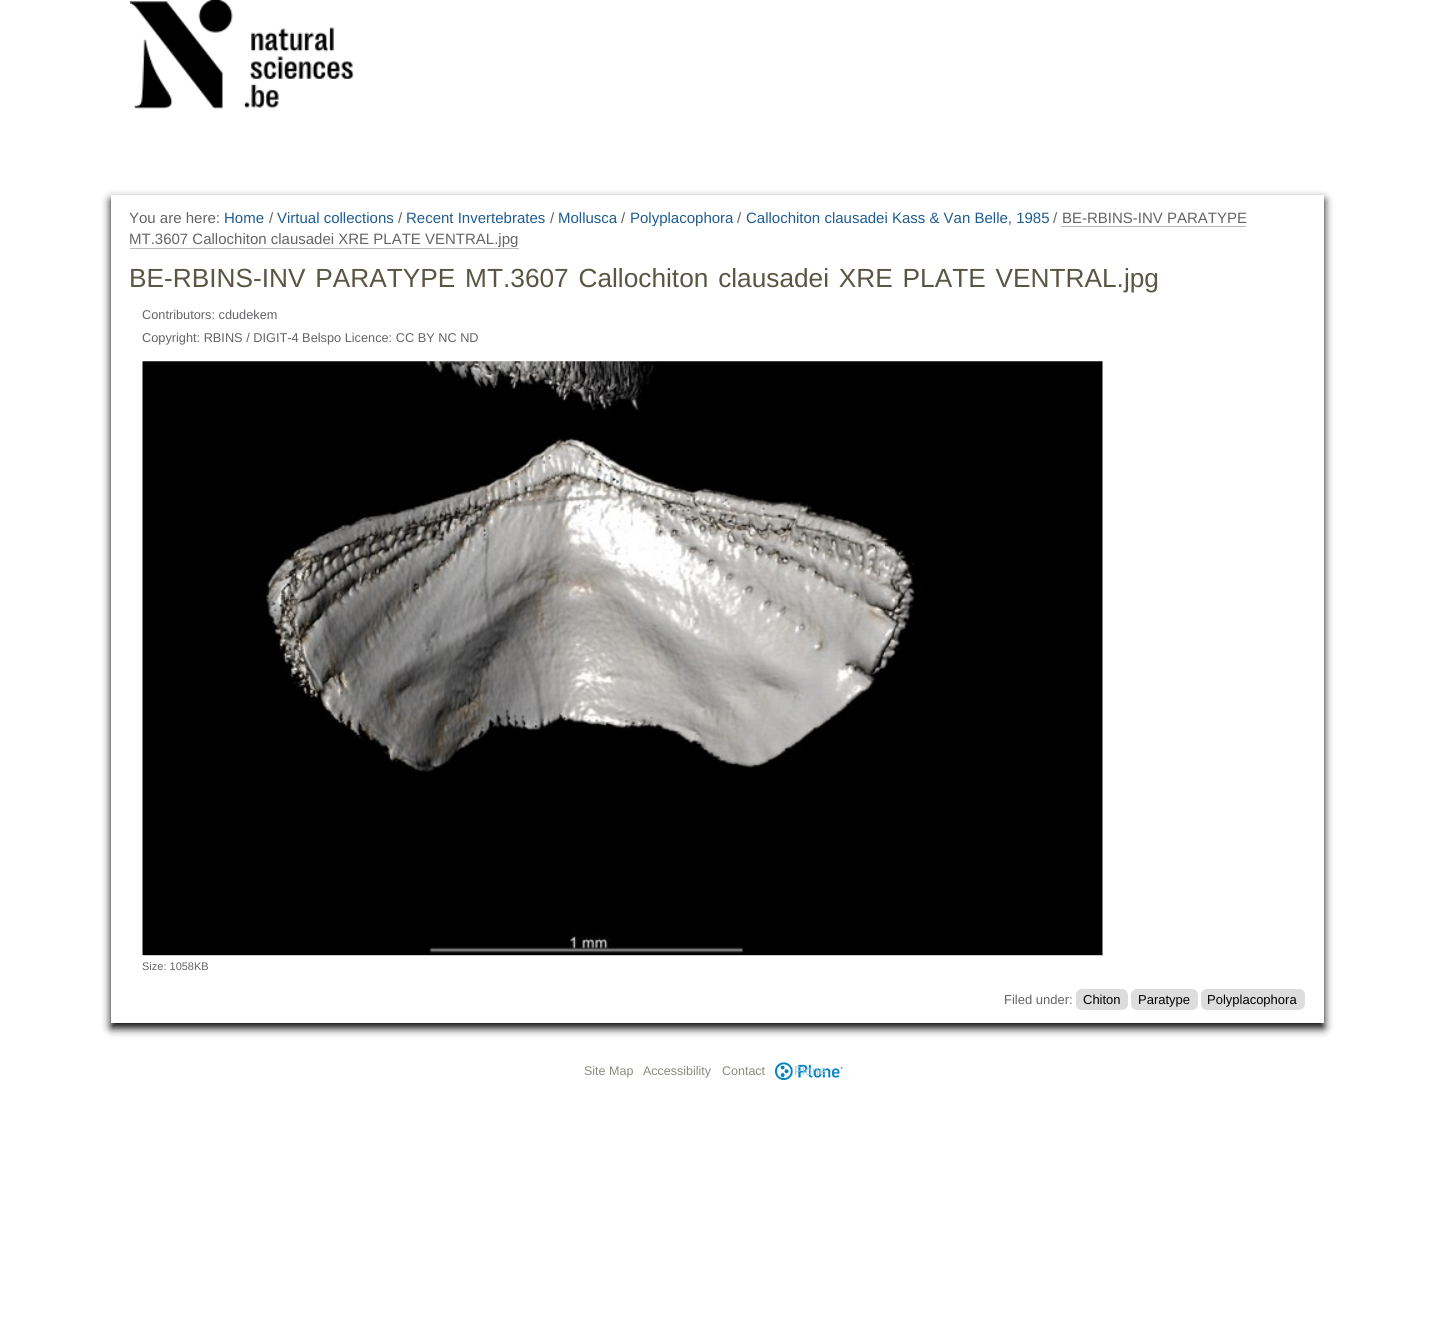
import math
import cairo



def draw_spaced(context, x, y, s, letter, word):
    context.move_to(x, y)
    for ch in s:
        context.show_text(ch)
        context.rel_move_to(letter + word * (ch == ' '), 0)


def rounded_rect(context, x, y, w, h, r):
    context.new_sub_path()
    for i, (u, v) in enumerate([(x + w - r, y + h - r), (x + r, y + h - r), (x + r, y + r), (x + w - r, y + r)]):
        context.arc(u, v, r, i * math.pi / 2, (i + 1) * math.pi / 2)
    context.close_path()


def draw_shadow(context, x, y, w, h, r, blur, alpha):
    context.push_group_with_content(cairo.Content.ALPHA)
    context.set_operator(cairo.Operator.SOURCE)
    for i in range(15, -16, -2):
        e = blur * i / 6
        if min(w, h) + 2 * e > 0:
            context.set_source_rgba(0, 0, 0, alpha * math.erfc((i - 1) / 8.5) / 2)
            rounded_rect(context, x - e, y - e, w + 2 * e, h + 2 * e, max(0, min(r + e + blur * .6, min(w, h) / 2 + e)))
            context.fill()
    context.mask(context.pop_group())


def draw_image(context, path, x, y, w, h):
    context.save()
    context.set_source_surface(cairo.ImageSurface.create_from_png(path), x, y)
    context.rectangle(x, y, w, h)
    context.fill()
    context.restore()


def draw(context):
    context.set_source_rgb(1, 1, 1)
    context.paint()
    draw_image(context, "images/1.png", 130, 0, 224, 109)
    context.set_source_rgb(0, 0, 0)
    draw_shadow(context, 111, 200, 1213, 828, 0, 4.5, 1)
    context.set_source_rgb(1, 1, 1)
    context.rectangle(111, 195, 1213, 828)
    context.fill()
    context.set_source_rgb(187 / 255, 187 / 255, 187 / 255)
    context.rectangle(1061, 226, 185, 1)
    context.fill()
    context.rectangle(130, 248, 389, 1)
    context.fill()
    context.set_source_rgb(204 / 255, 204 / 255, 204 / 255)
    context.rectangle(143, 955, 960, 1)
    context.fill()
    draw_image(context, "images/2.png", 142, 361, 961, 594)
    context.set_source_rgb(221 / 255, 221 / 255, 221 / 255)
    rounded_rect(context, 1076, 989, 52, 21, 6)
    context.fill()
    rounded_rect(context, 1131, 989, 67, 21, 6)
    context.fill()
    rounded_rect(context, 1201, 989, 104, 21, 6)
    context.fill()
    draw_image(context, "images/3.png", 775, 1062, 68, 18)
    context.select_font_face("Liberation Sans")
    context.set_font_size(15)
    context.set_source_rgb(99 / 255, 100 / 255, 102 / 255)
    context.move_to(129, 223)
    context.show_text("You are here:")
    context.set_source_rgb(32 / 255, 92 / 255, 144 / 255)
    context.move_to(224, 223)
    context.show_text("Home")
    context.set_source_rgb(99 / 255, 100 / 255, 102 / 255)
    context.move_to(269, 223)
    context.show_text("/")
    context.set_source_rgb(32 / 255, 92 / 255, 144 / 255)
    context.move_to(277, 223)
    context.show_text("Virtual collections")
    context.set_source_rgb(99 / 255, 100 / 255, 102 / 255)
    context.move_to(398, 223)
    context.show_text("/")
    context.set_source_rgb(32 / 255, 92 / 255, 144 / 255)
    context.move_to(406, 223)
    context.show_text("Recent Invertebrates")
    context.set_source_rgb(99 / 255, 100 / 255, 102 / 255)
    context.move_to(550, 223)
    context.show_text("/")
    context.set_source_rgb(32 / 255, 92 / 255, 144 / 255)
    context.move_to(558, 223)
    context.show_text("Mollusca")
    context.set_source_rgb(99 / 255, 100 / 255, 102 / 255)
    context.move_to(621, 223)
    context.show_text("/")
    context.set_source_rgb(32 / 255, 92 / 255, 144 / 255)
    context.move_to(630, 223)
    context.show_text("Polyplacophora")
    context.set_source_rgb(99 / 255, 100 / 255, 102 / 255)
    context.move_to(737, 223)
    context.show_text("/")
    context.set_source_rgb(32 / 255, 92 / 255, 144 / 255)
    context.move_to(746, 223)
    context.show_text("Callochiton clausadei Kass & Van Belle, 1985")
    context.set_source_rgb(99 / 255, 100 / 255, 102 / 255)
    context.move_to(1053, 223)
    context.show_text("/")
    context.move_to(1062, 223)
    context.show_text("BE-RBINS-INV PARATYPE")
    context.move_to(129, 244)
    context.show_text("MT.3607 Callochiton clausadei XRE PLATE VENTRAL.jpg")
    context.set_font_size(26.25)
    context.set_source_rgb(91 / 255, 86 / 255, 68 / 255)
    draw_spaced(context, 129, 287, "BE-RBINS-INV PARATYPE MT.3607 Callochiton clausadei XRE PLATE VENTRAL.jpg", 0, 2.5)
    context.set_font_size(12.75)
    context.set_source_rgb(99 / 255, 100 / 255, 102 / 255)
    context.move_to(142, 319)
    context.show_text("Contributors: cdudekem")
    context.move_to(142, 342)
    context.show_text("Copyright: RBINS / DIGIT-4 Belspo Licence: CC BY NC ND")
    context.set_font_size(11)
    context.move_to(142, 970)
    context.show_text("Size: 1058KB")
    context.set_font_size(13)
    context.move_to(1004, 1004)
    context.show_text("Filed under:")
    context.set_source_rgb(0, 0, 0)
    context.move_to(1083, 1004)
    context.show_text("Chiton")
    context.move_to(1138, 1004)
    context.show_text("Paratype")
    context.move_to(1207, 1004)
    context.show_text("Polyplacophora")
    context.set_font_size(12.5)
    context.set_source_rgb(140 / 255, 136 / 255, 130 / 255)
    context.move_to(584, 1075)
    context.show_text("Site Map")
    context.move_to(643, 1075)
    context.show_text("Accessibility")
    context.move_to(722, 1075)
    context.show_text("Contact")
    context.set_source_rgb(156 / 255, 207 / 255, 229 / 255)
    context.move_to(794, 1075)
    context.show_text("Plone")


surface = cairo.ImageSurface(cairo.Format.RGB24, 1433, 1331)
context = cairo.Context(surface)
options = cairo.FontOptions()
options.set_hint_metrics(cairo.HintMetrics.OFF)
options.set_hint_style(cairo.HintStyle.NONE)
context.set_font_options(options)
context.set_miter_limit(4)
draw(context)
surface.write_to_png("out.png")
